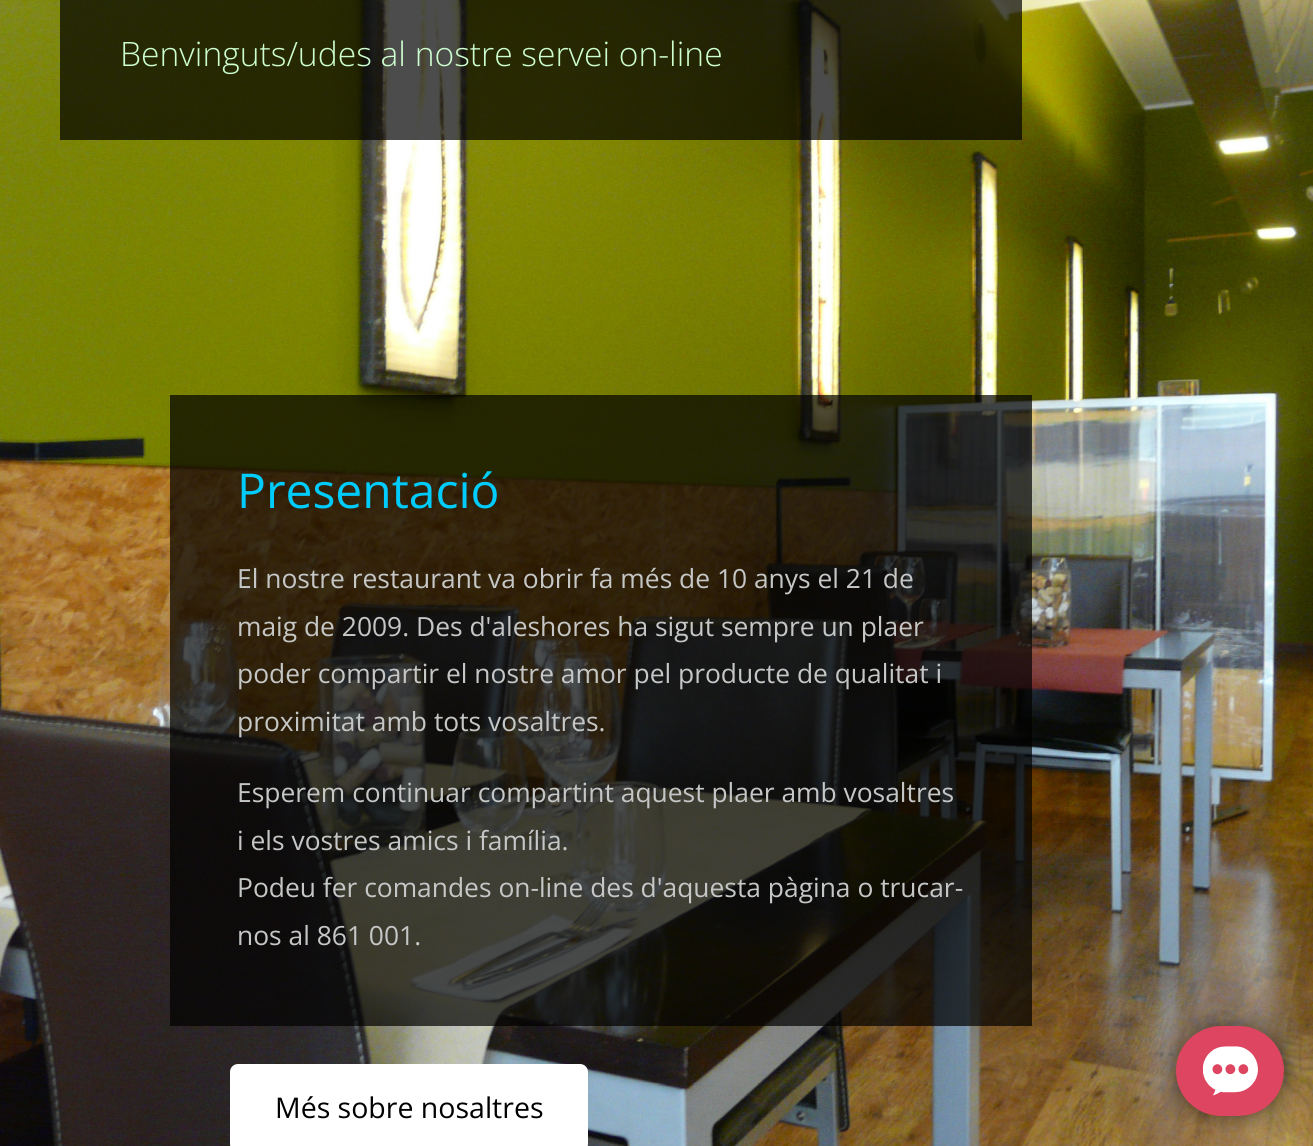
import math
import cairo



def rounded_rect(context, x, y, w, h, r):
    context.new_sub_path()
    for i, (u, v) in enumerate([(x + w - r, y + h - r), (x + r, y + h - r), (x + r, y + r), (x + w - r, y + r)]):
        context.arc(u, v, r, i * math.pi / 2, (i + 1) * math.pi / 2)
    context.close_path()


def draw_image(context, path, x, y, w, h):
    context.save()
    context.set_source_surface(cairo.ImageSurface.create_from_png(path), x, y)
    context.rectangle(x, y, w, h)
    context.fill()
    context.restore()


def draw(context):
    context.set_source_rgb(1, 1, 1)
    context.paint()
    draw_image(context, "images/1.png", 0, 0, 1313, 1146)
    context.set_source_rgba(0, 0, 0, 0.7)
    context.rectangle(60, 0, 962, 140)
    context.fill()
    context.rectangle(170, 395, 862, 631)
    context.fill()
    context.set_source_rgb(1, 1, 1)
    rounded_rect(context, 230, 1064, 358, 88, 8)
    context.fill()
    draw_image(context, "images/2.png", 1160, 1010, 140, 123)
    context.select_font_face("Open Sans Light")
    context.set_font_size(33.6)
    context.set_source_rgb(205 / 255, 1, 208 / 255)
    context.move_to(120, 66)
    context.show_text("Benvinguts/udes al nostre servei on-line")
    context.select_font_face("Open Sans")
    context.set_font_size(48)
    context.set_source_rgb(0, 204 / 255, 252 / 255)
    context.move_to(237, 508)
    context.show_text("Presentació")
    context.set_font_size(26.4)
    context.set_source_rgb(197 / 255, 199 / 255, 198 / 255)
    context.move_to(237, 588)
    context.show_text("El nostre restaurant va obrir fa més de 10 anys el 21 de")
    context.move_to(237, 636)
    context.show_text("maig de 2009. Des d'aleshores ha sigut sempre un plaer")
    context.move_to(237, 683)
    context.show_text("poder compartir el nostre amor pel producte de qualitat i")
    context.move_to(237, 731)
    context.show_text("proximitat amb tots vosaltres.")
    context.move_to(237, 802)
    context.show_text("Esperem continuar compartint aquest plaer amb vosaltres")
    context.move_to(237, 850)
    context.show_text("i els vostres amics i família.")
    context.move_to(237, 897)
    context.show_text("Podeu fer comandes on-line des d'aquesta pàgina o trucar-")
    context.move_to(237, 945)
    context.show_text("nos al 861 001.")
    context.set_font_size(28.5)
    context.set_source_rgb(0, 0, 0)
    context.move_to(275, 1118)
    context.show_text("Més sobre nosaltres")


surface = cairo.ImageSurface(cairo.Format.RGB24, 1313, 1146)
context = cairo.Context(surface)
options = cairo.FontOptions()
options.set_hint_metrics(cairo.HintMetrics.OFF)
options.set_hint_style(cairo.HintStyle.NONE)
context.set_font_options(options)
context.set_miter_limit(4)
draw(context)
surface.write_to_png("out.png")
